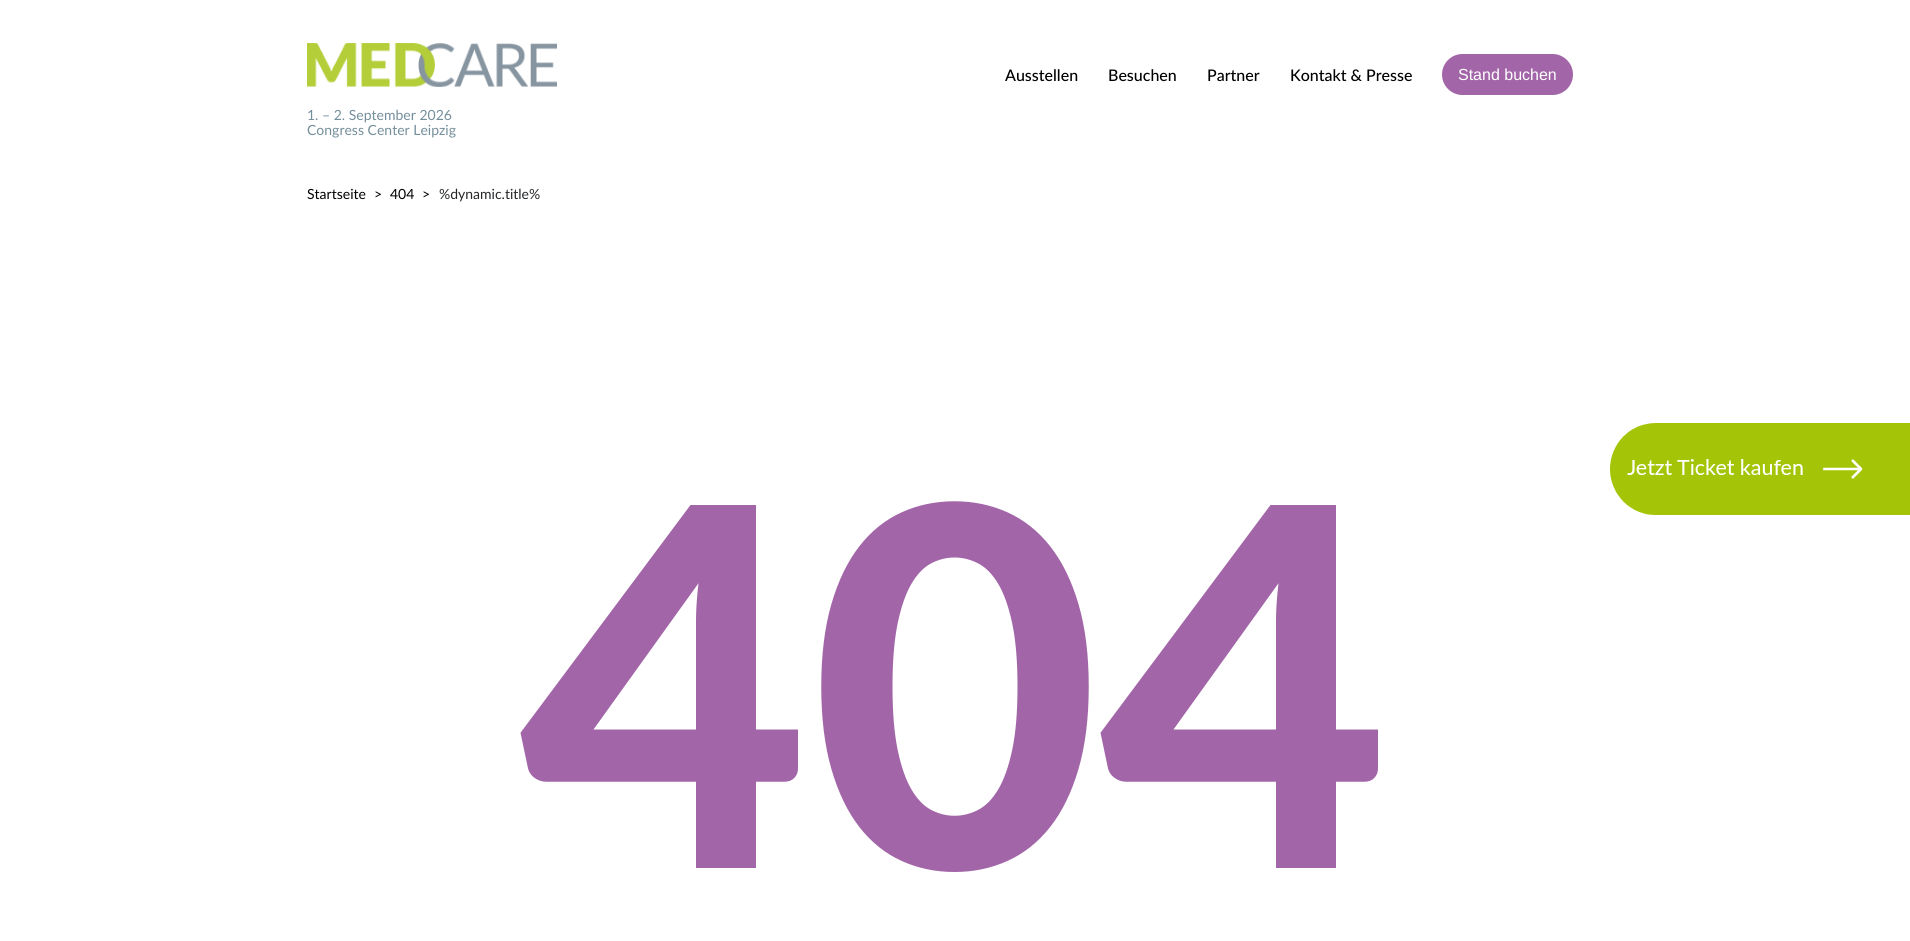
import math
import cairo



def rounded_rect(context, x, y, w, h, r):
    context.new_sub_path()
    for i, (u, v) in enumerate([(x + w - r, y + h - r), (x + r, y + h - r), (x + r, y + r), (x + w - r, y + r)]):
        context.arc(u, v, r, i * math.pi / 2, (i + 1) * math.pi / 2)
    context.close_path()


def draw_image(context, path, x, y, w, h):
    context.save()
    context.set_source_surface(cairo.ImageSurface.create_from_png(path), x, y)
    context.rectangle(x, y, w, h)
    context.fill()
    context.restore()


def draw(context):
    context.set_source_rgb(1, 1, 1)
    context.paint()
    context.set_source_rgb(162 / 255, 102 / 255, 168 / 255)
    rounded_rect(context, 1442, 54, 131, 41, 20.5)
    context.fill()
    draw_image(context, "images/1.png", 307, 43, 250, 44)
    draw_image(context, "images/2.png", 1610, 423, 300, 92)
    context.select_font_face("Lato Medium")
    context.set_font_size(16)
    context.set_source_rgb(0, 0, 0)
    context.move_to(1005, 81)
    context.show_text("Ausstellen")
    context.move_to(1108, 81)
    context.show_text("Besuchen")
    context.move_to(1207, 81)
    context.show_text("Partner")
    context.move_to(1290, 81)
    context.show_text("Kontakt & Presse")
    context.select_font_face("Liberation Sans")
    context.set_source_rgb(1, 1, 1)
    context.move_to(1458, 80)
    context.show_text("Stand buchen")
    context.select_font_face("Lato")
    context.set_font_size(14)
    context.set_source_rgb(116 / 255, 142 / 255, 155 / 255)
    context.move_to(307, 120)
    context.show_text("1. – 2. September 2026")
    context.move_to(307, 135)
    context.show_text("Congress Center Leipzig")
    context.set_source_rgb(0, 0, 0)
    context.move_to(307, 199)
    context.show_text("Startseite")
    context.move_to(374, 199)
    context.show_text(">")
    context.move_to(390, 199)
    context.show_text("404")
    context.move_to(422, 199)
    context.show_text(">")
    context.set_source_rgb(36 / 255, 38 / 255, 40 / 255)
    context.move_to(439, 199)
    context.show_text("%dynamic.title%")
    context.select_font_face("Lato Black")
    context.set_font_size(500)
    context.set_source_rgb(162 / 255, 102 / 255, 168 / 255)
    context.move_to(520, 868)
    context.show_text("404")


surface = cairo.ImageSurface(cairo.Format.RGB24, 1910, 941)
context = cairo.Context(surface)
options = cairo.FontOptions()
options.set_hint_metrics(cairo.HintMetrics.OFF)
options.set_hint_style(cairo.HintStyle.NONE)
context.set_font_options(options)
context.set_miter_limit(4)
draw(context)
surface.write_to_png("out.png")
